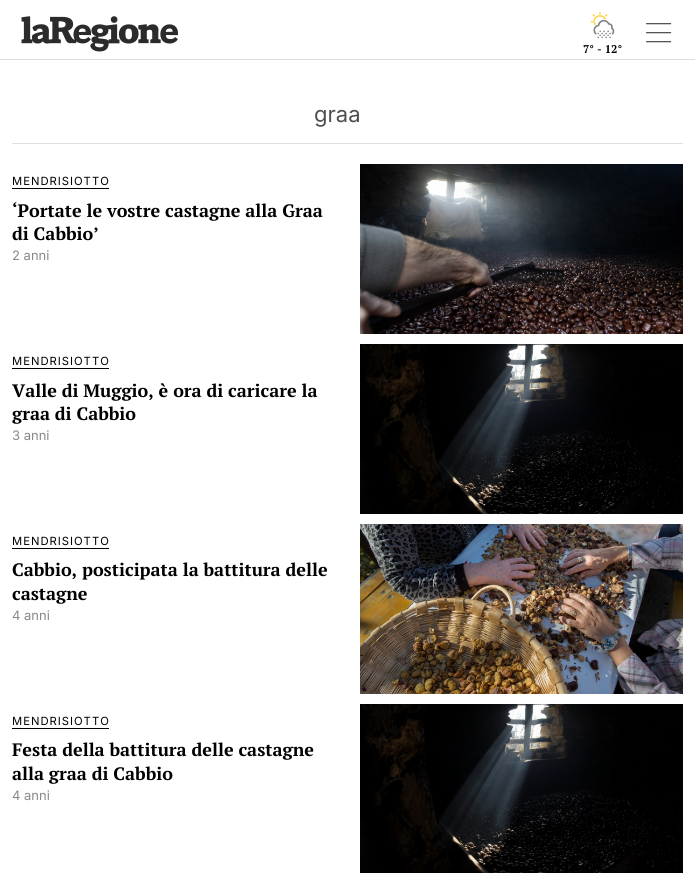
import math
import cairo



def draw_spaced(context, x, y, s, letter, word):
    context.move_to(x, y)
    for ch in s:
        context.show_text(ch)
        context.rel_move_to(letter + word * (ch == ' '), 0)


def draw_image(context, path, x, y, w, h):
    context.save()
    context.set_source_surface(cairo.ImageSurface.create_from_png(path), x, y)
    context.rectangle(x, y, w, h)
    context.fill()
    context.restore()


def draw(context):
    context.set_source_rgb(1, 1, 1)
    context.paint()
    context.set_source_rgb(221 / 255, 221 / 255, 221 / 255)
    context.rectangle(0, 59, 695, 1)
    context.fill()
    draw_image(context, "images/1.png", 21, 16, 157, 36)
    draw_image(context, "images/2.png", 646, 23, 26, 20)
    draw_image(context, "images/3.png", 590, 12, 25, 27)
    context.set_source_rgb(224 / 255, 224 / 255, 224 / 255)
    context.rectangle(12, 143, 671, 1)
    context.fill()
    context.set_source_rgb(0, 0, 0)
    context.rectangle(12, 188, 97, 1)
    context.fill()
    draw_image(context, "images/4.png", 360, 164, 323, 170)
    context.rectangle(12, 368, 97, 1)
    context.fill()
    draw_image(context, "images/5.png", 360, 344, 323, 170)
    context.rectangle(12, 548, 97, 1)
    context.fill()
    draw_image(context, "images/6.png", 360, 524, 323, 170)
    context.rectangle(12, 728, 97, 1)
    context.fill()
    draw_image(context, "images/7.png", 360, 704, 323, 169)
    context.select_font_face("PT Serif", cairo.FontSlant.NORMAL, cairo.FontWeight.BOLD)
    context.set_font_size(11.25)
    context.move_to(583, 53)
    context.show_text("7° - 12°")
    context.select_font_face("Inter")
    context.set_font_size(22)
    context.set_source_rgb(79 / 255, 79 / 255, 79 / 255)
    context.move_to(314, 122)
    context.show_text("graa")
    context.set_font_size(11.25)
    context.set_source_rgb(0, 0, 0)
    draw_spaced(context, 12, 185, "MENDRISIOTTO", 1, 0)
    context.select_font_face("PT Serif", cairo.FontSlant.NORMAL, cairo.FontWeight.BOLD)
    context.set_font_size(18)
    context.move_to(12, 217)
    context.show_text("‘Portate le vostre castagne alla Graa")
    context.move_to(12, 240)
    context.show_text("di Cabbio’")
    context.select_font_face("Inter")
    context.set_font_size(13)
    context.set_source_rgb(136 / 255, 136 / 255, 136 / 255)
    context.move_to(12, 260)
    context.show_text("2 anni")
    context.set_font_size(11.25)
    context.set_source_rgb(0, 0, 0)
    draw_spaced(context, 12, 365, "MENDRISIOTTO", 1, 0)
    context.select_font_face("PT Serif", cairo.FontSlant.NORMAL, cairo.FontWeight.BOLD)
    context.set_font_size(18)
    context.move_to(12, 397)
    context.show_text("Valle di Muggio, è ora di caricare la")
    context.move_to(12, 420)
    context.show_text("graa di Cabbio")
    context.select_font_face("Inter")
    context.set_font_size(13)
    context.set_source_rgb(136 / 255, 136 / 255, 136 / 255)
    context.move_to(12, 440)
    context.show_text("3 anni")
    context.set_font_size(11.25)
    context.set_source_rgb(0, 0, 0)
    draw_spaced(context, 12, 545, "MENDRISIOTTO", 1, 0)
    context.select_font_face("PT Serif", cairo.FontSlant.NORMAL, cairo.FontWeight.BOLD)
    context.set_font_size(18)
    context.move_to(12, 576)
    context.show_text("Cabbio, posticipata la battitura delle")
    context.move_to(12, 600)
    context.show_text("castagne")
    context.select_font_face("Inter")
    context.set_font_size(13)
    context.set_source_rgb(136 / 255, 136 / 255, 136 / 255)
    context.move_to(12, 620)
    context.show_text("4 anni")
    context.set_font_size(11.25)
    context.set_source_rgb(0, 0, 0)
    draw_spaced(context, 12, 725, "MENDRISIOTTO", 1, 0)
    context.select_font_face("PT Serif", cairo.FontSlant.NORMAL, cairo.FontWeight.BOLD)
    context.set_font_size(18)
    context.move_to(12, 756)
    context.show_text("Festa della battitura delle castagne")
    context.move_to(12, 780)
    context.show_text("alla graa di Cabbio")
    context.select_font_face("Inter")
    context.set_font_size(13)
    context.set_source_rgb(136 / 255, 136 / 255, 136 / 255)
    context.move_to(12, 800)
    context.show_text("4 anni")


surface = cairo.ImageSurface(cairo.Format.RGB24, 695, 882)
context = cairo.Context(surface)
options = cairo.FontOptions()
options.set_hint_metrics(cairo.HintMetrics.OFF)
options.set_hint_style(cairo.HintStyle.NONE)
context.set_font_options(options)
context.set_miter_limit(4)
draw(context)
surface.write_to_png("out.png")
